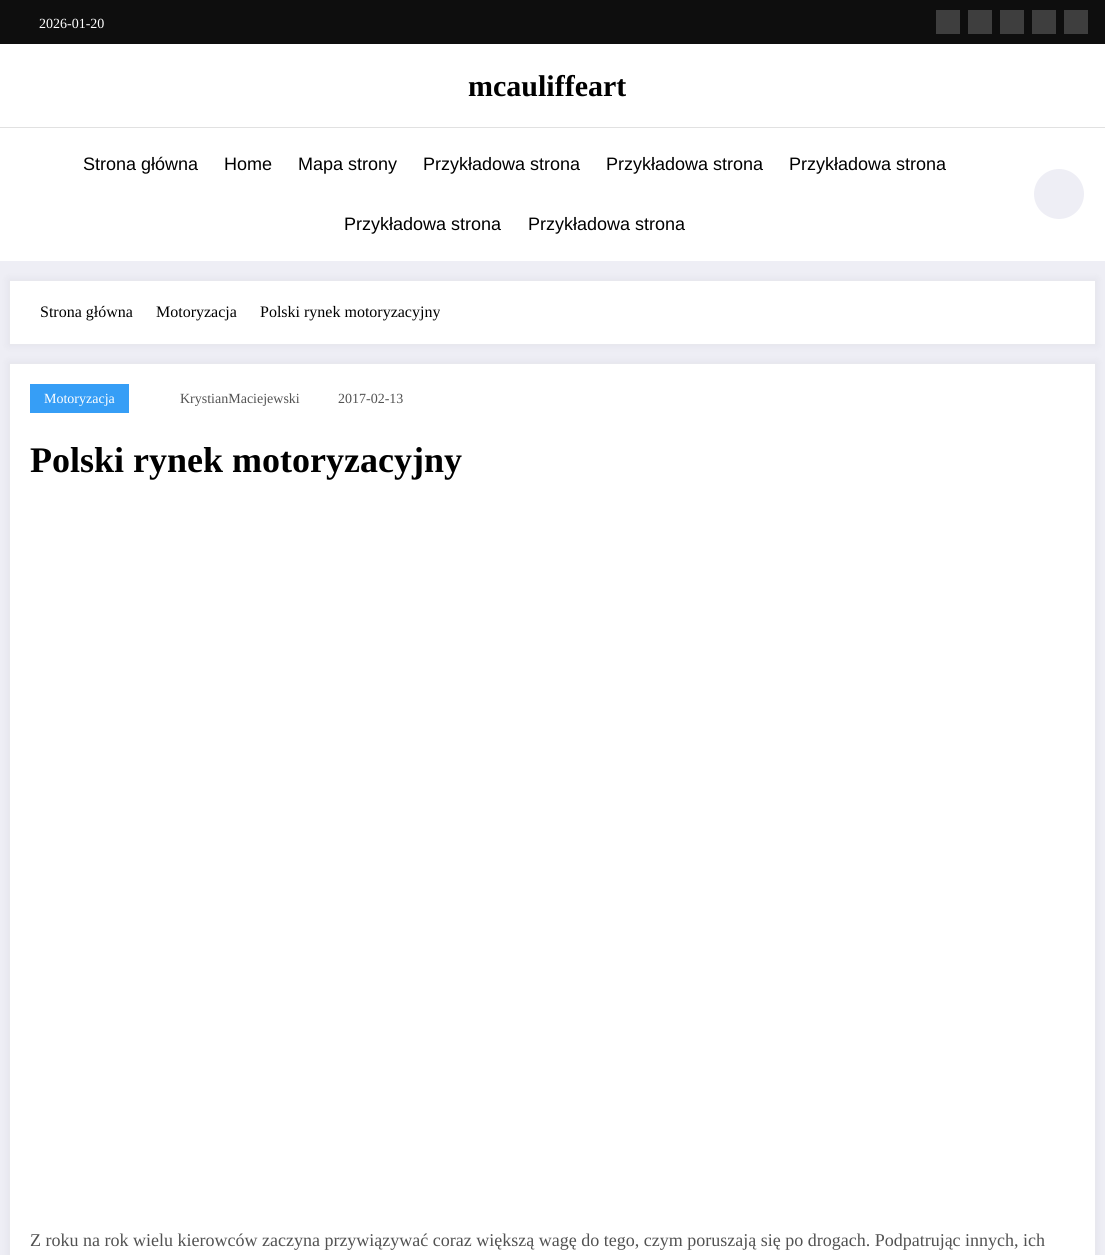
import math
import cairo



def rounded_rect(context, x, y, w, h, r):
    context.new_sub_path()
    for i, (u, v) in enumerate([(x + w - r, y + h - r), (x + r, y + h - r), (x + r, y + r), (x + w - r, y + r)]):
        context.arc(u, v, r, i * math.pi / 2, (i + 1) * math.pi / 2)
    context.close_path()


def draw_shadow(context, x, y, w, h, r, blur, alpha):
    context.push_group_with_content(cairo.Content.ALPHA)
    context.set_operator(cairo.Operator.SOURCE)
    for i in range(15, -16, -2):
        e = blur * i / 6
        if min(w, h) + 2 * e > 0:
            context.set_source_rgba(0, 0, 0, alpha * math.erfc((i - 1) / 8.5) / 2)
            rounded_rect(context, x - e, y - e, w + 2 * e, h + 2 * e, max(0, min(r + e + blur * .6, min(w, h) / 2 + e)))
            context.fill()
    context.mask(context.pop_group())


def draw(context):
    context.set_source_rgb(238 / 255, 238 / 255, 245 / 255)
    context.paint()
    context.set_source_rgb(14 / 255, 14 / 255, 14 / 255)
    context.rectangle(0, 0, 1105, 44)
    context.fill()
    context.set_source_rgb(62 / 255, 62 / 255, 62 / 255)
    context.rectangle(936, 10, 24, 24)
    context.fill()
    context.rectangle(968, 10, 24, 24)
    context.fill()
    context.rectangle(1000, 10, 24, 24)
    context.fill()
    context.rectangle(1032, 10, 24, 24)
    context.fill()
    context.rectangle(1064, 10, 24, 24)
    context.fill()
    context.set_source_rgb(1, 1, 1)
    context.rectangle(0, 44, 1105, 217)
    context.fill()
    context.set_source_rgb(225 / 255, 225 / 255, 225 / 255)
    context.rectangle(0, 127, 1105, 1)
    context.fill()
    context.set_source_rgb(238 / 255, 238 / 255, 245 / 255)
    context.arc(1059, 194, 25, 0, 2 * math.pi)
    context.fill()
    context.set_source_rgb(23 / 255, 23 / 255, 35 / 255)
    draw_shadow(context, 8, 279, 1089, 67, 0, 4, 0.05)
    context.set_source_rgb(1, 1, 1)
    context.rectangle(10, 281, 1085, 63)
    context.fill()
    context.set_source_rgb(23 / 255, 23 / 255, 35 / 255)
    draw_shadow(context, 8, 362, 1089, 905, 0, 4, 0.05)
    context.set_source_rgb(1, 1, 1)
    context.rectangle(10, 364, 1085, 891)
    context.fill()
    context.set_source_rgb(54 / 255, 158 / 255, 246 / 255)
    context.rectangle(30, 384, 99, 29)
    context.fill()
    context.select_font_face("Liberation Serif")
    context.set_font_size(14)
    context.set_source_rgb(1, 1, 1)
    context.move_to(39, 28)
    context.show_text("2026-01-20")
    context.select_font_face("Liberation Serif", cairo.FontSlant.NORMAL, cairo.FontWeight.BOLD)
    context.set_font_size(30)
    context.set_source_rgb(0, 0, 0)
    context.move_to(468, 96)
    context.show_text("mcauliffeart")
    context.select_font_face("Liberation Sans")
    context.set_font_size(18)
    context.move_to(83, 170)
    context.show_text("Strona główna")
    context.move_to(224, 170)
    context.show_text("Home")
    context.move_to(298, 170)
    context.show_text("Mapa strony")
    context.move_to(423, 170)
    context.show_text("Przykładowa strona")
    context.move_to(606, 170)
    context.show_text("Przykładowa strona")
    context.move_to(789, 170)
    context.show_text("Przykładowa strona")
    context.move_to(344, 230)
    context.show_text("Przykładowa strona")
    context.move_to(528, 230)
    context.show_text("Przykładowa strona")
    context.select_font_face("Liberation Serif")
    context.set_font_size(16)
    context.move_to(40, 317)
    context.show_text("Strona główna")
    context.move_to(156, 317)
    context.show_text("Motoryzacja")
    context.move_to(260, 317)
    context.show_text("Polski rynek motoryzacyjny")
    context.set_font_size(14)
    context.set_source_rgb(1, 1, 1)
    context.move_to(44, 403)
    context.show_text("Motoryzacja")
    context.set_source_rgb(82 / 255, 82 / 255, 82 / 255)
    context.move_to(180, 403)
    context.show_text("KrystianMaciejewski")
    context.move_to(338, 403)
    context.show_text("2017-02-13")
    context.select_font_face("Liberation Serif", cairo.FontSlant.NORMAL, cairo.FontWeight.BOLD)
    context.set_font_size(36)
    context.set_source_rgb(0, 0, 0)
    context.move_to(30, 472)
    context.show_text("Polski rynek motoryzacyjny")
    context.select_font_face("Liberation Serif")
    context.set_font_size(18)
    context.set_source_rgb(82 / 255, 82 / 255, 82 / 255)
    context.move_to(30, 1246)
    context.show_text("Z roku na rok wielu kierowców zaczyna przywiązywać coraz większą wagę do tego, czym poruszają się po drogach. Podpatrując innych, ich")


surface = cairo.ImageSurface(cairo.Format.RGB24, 1105, 1255)
context = cairo.Context(surface)
options = cairo.FontOptions()
options.set_hint_metrics(cairo.HintMetrics.OFF)
options.set_hint_style(cairo.HintStyle.NONE)
context.set_font_options(options)
context.set_miter_limit(4)
draw(context)
surface.write_to_png("out.png")
